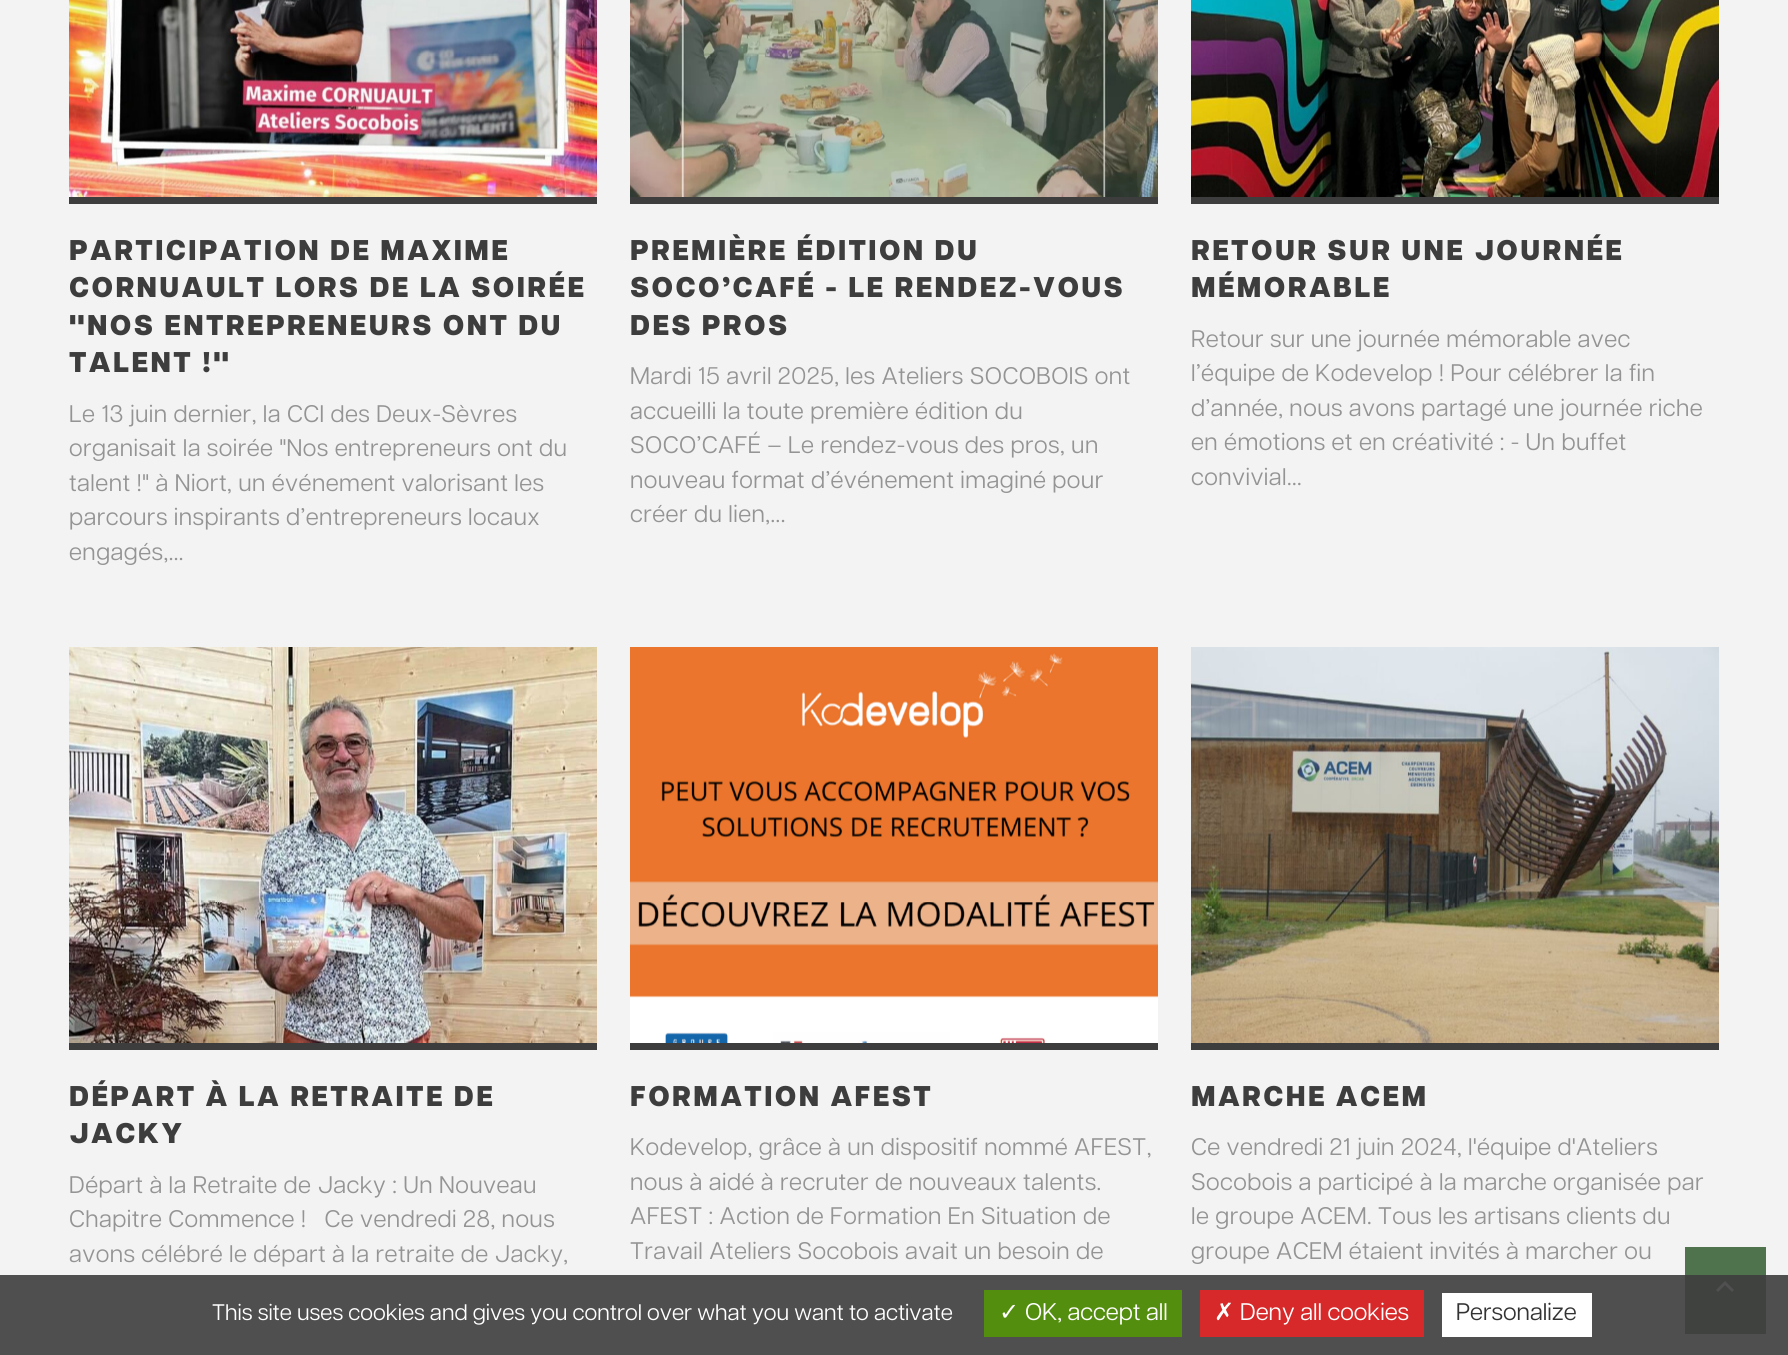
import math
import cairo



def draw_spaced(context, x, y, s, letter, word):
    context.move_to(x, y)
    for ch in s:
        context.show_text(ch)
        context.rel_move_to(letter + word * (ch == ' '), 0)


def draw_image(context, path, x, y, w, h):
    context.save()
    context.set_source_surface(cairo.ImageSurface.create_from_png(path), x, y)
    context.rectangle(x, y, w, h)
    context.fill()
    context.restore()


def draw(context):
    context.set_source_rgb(243 / 255, 243 / 255, 243 / 255)
    context.paint()
    context.set_source_rgb(79 / 255, 79 / 255, 79 / 255)
    context.rectangle(0, 1275, 1788, 80)
    context.fill()
    context.set_source_rgb(61 / 255, 61 / 255, 61 / 255)
    context.rectangle(69, 197, 528, 7)
    context.fill()
    draw_image(context, "images/1.png", 69, 0, 528, 197)
    context.rectangle(630, 197, 528, 7)
    context.fill()
    draw_image(context, "images/2.png", 630, 0, 528, 197)
    context.rectangle(1191, 197, 528, 7)
    context.fill()
    draw_image(context, "images/3.png", 1191, 0, 528, 197)
    context.rectangle(69, 1043, 528, 7)
    context.fill()
    draw_image(context, "images/4.png", 69, 647, 528, 396)
    context.rectangle(630, 1043, 528, 7)
    context.fill()
    draw_image(context, "images/5.png", 630, 647, 528, 396)
    context.rectangle(1191, 1043, 528, 7)
    context.fill()
    draw_image(context, "images/6.png", 1191, 647, 528, 396)
    context.set_source_rgb(79 / 255, 115 / 255, 76 / 255)
    context.rectangle(1685, 1247, 81, 28)
    context.fill()
    context.set_source_rgb(63 / 255, 66 / 255, 63 / 255)
    context.rectangle(1685, 1275, 81, 59)
    context.fill()
    context.set_source_rgb(80 / 255, 80 / 255, 80 / 255)
    context.new_path()
    context.move_to(1718, 1292)
    context.line_to(1716, 1290)
    context.line_to(1725, 1281)
    context.line_to(1734, 1290)
    context.line_to(1732, 1292)
    context.line_to(1725, 1285)
    context.close_path()
    context.fill()
    context.set_source_rgb(84 / 255, 142 / 255, 14 / 255)
    context.rectangle(984, 1290, 198, 47)
    context.fill()
    context.set_source_rgb(215 / 255, 41 / 255, 41 / 255)
    context.rectangle(1200, 1290, 224, 47)
    context.fill()
    context.set_source_rgb(1, 1, 1)
    context.rectangle(1442, 1293, 150, 44)
    context.fill()
    context.select_font_face("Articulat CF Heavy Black")
    context.set_font_size(28.5)
    context.set_source_rgb(61 / 255, 61 / 255, 61 / 255)
    draw_spaced(context, 69, 260, "PARTICIPATION DE MAXIME", 2.4, 0)
    draw_spaced(context, 69, 297, "CORNUAULT LORS DE LA SOIRÉE", 2.4, 0)
    draw_spaced(context, 69, 335, "\"NOS ENTREPRENEURS ONT DU", 2.4, 0)
    draw_spaced(context, 69, 372, "TALENT !\"", 2.4, 0)
    context.select_font_face("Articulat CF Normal")
    context.set_font_size(24)
    context.set_source_rgb(148 / 255, 148 / 255, 148 / 255)
    draw_spaced(context, 69, 422, "Le 13 juin dernier, la CCI des Deux-Sèvres", 0.45, 0)
    draw_spaced(context, 69, 456, "organisait la soirée \"Nos entrepreneurs ont du", 0.45, 0)
    draw_spaced(context, 69, 491, "talent !\" à Niort, un événement valorisant les", 0.45, 0)
    draw_spaced(context, 69, 525, "parcours inspirants d’entrepreneurs locaux", 0.45, 0)
    draw_spaced(context, 69, 560, "engagés,...", 0.45, 0)
    context.select_font_face("Articulat CF Heavy Black")
    context.set_font_size(28.5)
    context.set_source_rgb(61 / 255, 61 / 255, 61 / 255)
    draw_spaced(context, 630, 260, "PREMIÈRE ÉDITION DU", 2.4, 0)
    draw_spaced(context, 630, 297, "SOCO’CAFÉ - LE RENDEZ-VOUS", 2.4, 0)
    draw_spaced(context, 630, 335, "DES PROS", 2.4, 0)
    context.select_font_face("Articulat CF Normal")
    context.set_font_size(24)
    context.set_source_rgb(148 / 255, 148 / 255, 148 / 255)
    draw_spaced(context, 630, 384, "Mardi 15 avril 2025, les Ateliers SOCOBOIS ont", 0.45, 0)
    draw_spaced(context, 630, 419, "accueilli la toute première édition du", 0.45, 0)
    draw_spaced(context, 630, 453, "SOCO’CAFÉ – Le rendez-vous des pros, un", 0.45, 0)
    draw_spaced(context, 630, 488, "nouveau format d’événement imaginé pour", 0.45, 0)
    draw_spaced(context, 630, 522, "créer du lien,...", 0.45, 0)
    context.select_font_face("Articulat CF Heavy Black")
    context.set_font_size(28.5)
    context.set_source_rgb(61 / 255, 61 / 255, 61 / 255)
    draw_spaced(context, 1191, 260, "RETOUR SUR UNE JOURNÉE", 2.4, 0)
    draw_spaced(context, 1191, 297, "MÉMORABLE", 2.4, 0)
    context.select_font_face("Articulat CF Normal")
    context.set_font_size(24)
    context.set_source_rgb(148 / 255, 148 / 255, 148 / 255)
    draw_spaced(context, 1191, 347, "Retour sur une journée mémorable avec", 0.45, 0)
    draw_spaced(context, 1191, 381, "l’équipe de Kodevelop ! Pour célébrer la fin", 0.45, 0)
    draw_spaced(context, 1191, 416, "d’année, nous avons partagé une journée riche", 0.45, 0)
    draw_spaced(context, 1191, 450, "en émotions et en créativité : - Un buffet", 0.45, 0)
    draw_spaced(context, 1191, 485, "convivial...", 0.45, 0)
    context.select_font_face("Articulat CF Heavy Black")
    context.set_font_size(28.5)
    context.set_source_rgb(61 / 255, 61 / 255, 61 / 255)
    draw_spaced(context, 69, 1106, "DÉPART À LA RETRAITE DE", 2.4, 0)
    draw_spaced(context, 69, 1143, "JACKY", 2.4, 0)
    context.select_font_face("Articulat CF Normal")
    context.set_font_size(24)
    context.set_source_rgb(148 / 255, 148 / 255, 148 / 255)
    draw_spaced(context, 69, 1193, "Départ à la Retraite de Jacky : Un Nouveau", 0.45, 0)
    draw_spaced(context, 69, 1227, "Chapitre Commence !   Ce vendredi 28, nous", 0.45, 0)
    draw_spaced(context, 69, 1262, "avons célébré le départ à la retraite de Jacky,", 0.45, 0)
    context.select_font_face("Articulat CF Heavy Black")
    context.set_font_size(28.5)
    context.set_source_rgb(61 / 255, 61 / 255, 61 / 255)
    draw_spaced(context, 630, 1106, "FORMATION AFEST", 2.4, 0)
    context.select_font_face("Articulat CF Normal")
    context.set_font_size(24)
    context.set_source_rgb(148 / 255, 148 / 255, 148 / 255)
    draw_spaced(context, 630, 1155, "Kodevelop, grâce à un dispositif nommé AFEST,", 0.45, 0)
    draw_spaced(context, 630, 1190, "nous à aidé à recruter de nouveaux talents.", 0.45, 0)
    draw_spaced(context, 630, 1224, "AFEST : Action de Formation En Situation de", 0.45, 0)
    draw_spaced(context, 630, 1259, "Travail Ateliers Socobois avait un besoin de", 0.45, 0)
    context.select_font_face("Articulat CF Heavy Black")
    context.set_font_size(28.5)
    context.set_source_rgb(61 / 255, 61 / 255, 61 / 255)
    draw_spaced(context, 1191, 1106, "MARCHE ACEM", 2.4, 0)
    context.select_font_face("Articulat CF Normal")
    context.set_font_size(24)
    context.set_source_rgb(148 / 255, 148 / 255, 148 / 255)
    draw_spaced(context, 1191, 1155, "Ce vendredi 21 juin 2024, l'équipe d'Ateliers", 0.45, 0)
    draw_spaced(context, 1191, 1190, "Socobois a participé à la marche organisée par", 0.45, 0)
    draw_spaced(context, 1191, 1224, "le groupe ACEM. Tous les artisans clients du", 0.45, 0)
    draw_spaced(context, 1191, 1259, "groupe ACEM étaient invités à marcher ou", 0.45, 0)
    context.set_font_size(22.5)
    context.set_source_rgb(1, 1, 1)
    context.move_to(212, 1320)
    context.show_text("This site uses cookies and gives you control over what you want to activate")
    context.select_font_face("DejaVu Sans")
    context.set_font_size(24)
    context.move_to(999, 1320)
    context.show_text("✓")
    context.select_font_face("Articulat CF Normal")
    context.move_to(1025, 1320)
    context.show_text("OK, accept all")
    context.select_font_face("DejaVu Sans")
    context.move_to(1214, 1320)
    context.show_text("✗")
    context.select_font_face("Articulat CF Normal")
    context.move_to(1240, 1320)
    context.show_text("Deny all cookies")
    context.set_source_rgb(51 / 255, 51 / 255, 51 / 255)
    context.move_to(1456, 1320)
    context.show_text("Personalize")


surface = cairo.ImageSurface(cairo.Format.RGB24, 1788, 1355)
context = cairo.Context(surface)
options = cairo.FontOptions()
options.set_hint_metrics(cairo.HintMetrics.OFF)
options.set_hint_style(cairo.HintStyle.NONE)
context.set_font_options(options)
context.set_miter_limit(4)
draw(context)
surface.write_to_png("out.png")
